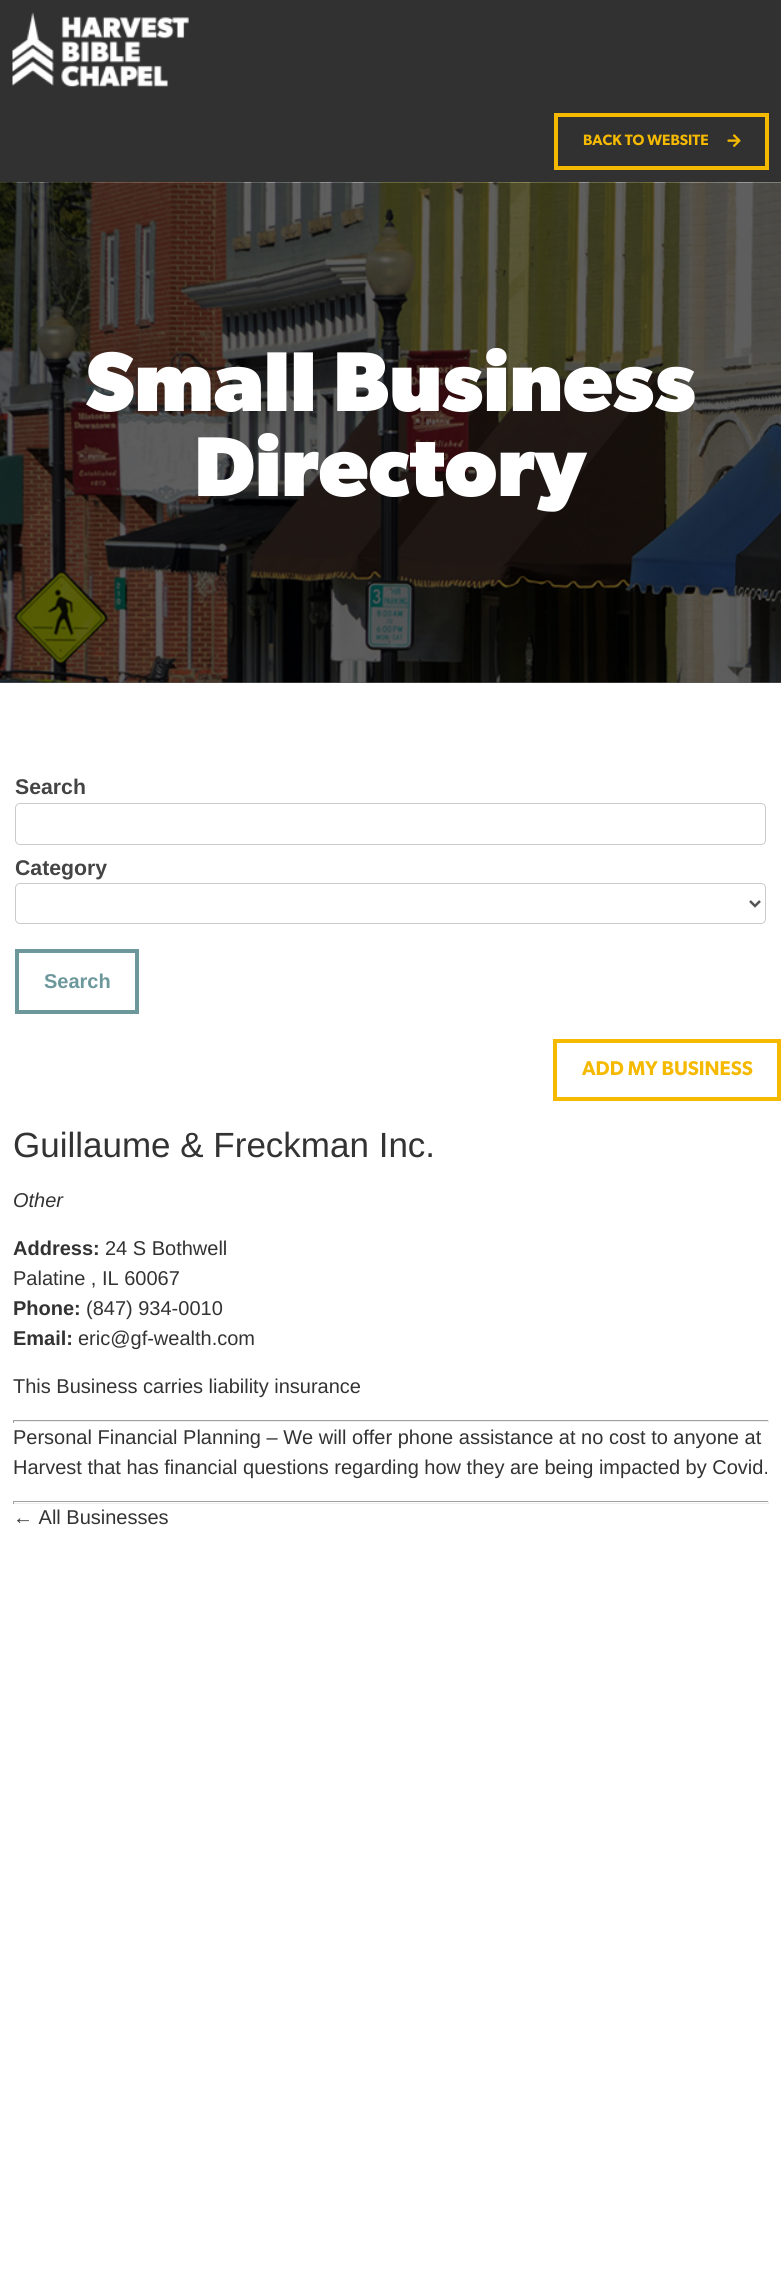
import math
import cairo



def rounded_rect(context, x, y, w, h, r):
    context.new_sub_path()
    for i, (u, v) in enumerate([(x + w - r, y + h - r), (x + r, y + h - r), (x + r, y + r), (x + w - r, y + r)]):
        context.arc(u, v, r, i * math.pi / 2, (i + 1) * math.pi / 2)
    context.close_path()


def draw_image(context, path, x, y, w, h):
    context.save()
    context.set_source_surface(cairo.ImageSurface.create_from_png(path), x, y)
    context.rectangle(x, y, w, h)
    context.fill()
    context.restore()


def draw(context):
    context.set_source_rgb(1, 1, 1)
    context.paint()
    context.set_source_rgb(94 / 255, 94 / 255, 94 / 255)
    context.rectangle(0, 682, 781, 1)
    context.fill()
    context.set_source_rgb(49 / 255, 49 / 255, 50 / 255)
    context.rectangle(0, 0, 781, 183)
    context.fill()
    draw_image(context, "images/1.png", 12, 12, 177, 75)
    context.rectangle(556, 115, 211, 53)
    context.set_source_rgb(245 / 255, 186 / 255, 0)
    context.set_line_width(4)
    context.stroke()
    draw_image(context, "images/2.png", 727, 134, 14, 13)
    draw_image(context, "images/3.png", 0, 182, 781, 501)
    rounded_rect(context, 15.5, 803.5, 750, 41, 4.5)
    context.set_source_rgb(204 / 255, 204 / 255, 204 / 255)
    context.set_line_width(1)
    context.stroke()
    rounded_rect(context, 15.5, 883.5, 750, 40, 4.5)
    context.stroke()
    context.new_path()
    context.move_to(750, 901)
    context.line_to(755, 906)
    context.line_to(760, 901)
    context.set_source_rgb(85 / 255, 85 / 255, 85 / 255)
    context.set_line_width(2.5)
    context.stroke()
    context.rectangle(17, 951, 120, 61)
    context.set_source_rgb(109 / 255, 152 / 255, 155 / 255)
    context.set_line_width(4)
    context.stroke()
    context.rectangle(555, 1041, 224, 58)
    context.set_source_rgb(245 / 255, 186 / 255, 0)
    context.stroke()
    context.set_source_rgb(159 / 255, 159 / 255, 159 / 255)
    context.rectangle(13, 1420, 756, 1)
    context.fill()
    context.set_source_rgb(238 / 255, 238 / 255, 238 / 255)
    context.rectangle(768, 1420, 1, 3)
    context.fill()
    context.rectangle(13, 1421, 756, 1)
    context.fill()
    context.set_source_rgb(159 / 255, 159 / 255, 159 / 255)
    context.rectangle(13, 1420, 1, 3)
    context.fill()
    context.rectangle(13, 1501, 756, 1)
    context.fill()
    context.set_source_rgb(238 / 255, 238 / 255, 238 / 255)
    context.rectangle(768, 1501, 1, 3)
    context.fill()
    context.rectangle(13, 1503, 756, 1)
    context.fill()
    context.set_source_rgb(159 / 255, 159 / 255, 159 / 255)
    context.rectangle(13, 1501, 1, 3)
    context.fill()
    context.select_font_face("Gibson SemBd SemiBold")
    context.set_font_size(15)
    context.set_source_rgb(245 / 255, 186 / 255, 0)
    context.move_to(583, 145)
    context.show_text("BACK TO WEBSITE")
    context.select_font_face("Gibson", cairo.FontSlant.NORMAL, cairo.FontWeight.BOLD)
    context.set_font_size(85)
    context.set_source_rgb(1, 1, 1)
    context.move_to(86, 411)
    context.show_text("Small Business")
    context.move_to(194, 496)
    context.show_text("Directory")
    context.select_font_face("Liberation Sans", cairo.FontSlant.NORMAL, cairo.FontWeight.BOLD)
    context.set_font_size(21.25)
    context.set_source_rgb(68 / 255, 68 / 255, 68 / 255)
    context.move_to(15, 794)
    context.show_text("Search")
    context.move_to(15, 875)
    context.show_text("Category")
    context.set_font_size(20)
    context.set_source_rgb(109 / 255, 152 / 255, 155 / 255)
    context.move_to(44, 988)
    context.show_text("Search")
    context.select_font_face("Gibson SemBd SemiBold")
    context.set_source_rgb(245 / 255, 186 / 255, 0)
    context.move_to(582, 1075)
    context.show_text("ADD MY BUSINESS")
    context.select_font_face("Liberation Sans")
    context.set_font_size(35)
    context.set_source_rgb(51 / 255, 51 / 255, 51 / 255)
    context.move_to(13, 1157)
    context.show_text("Guillaume & Freckman Inc.")
    context.select_font_face("Liberation Sans", cairo.FontSlant.ITALIC)
    context.set_font_size(20)
    context.move_to(13, 1207)
    context.show_text("Other")
    context.select_font_face("Liberation Sans", cairo.FontSlant.NORMAL, cairo.FontWeight.BOLD)
    context.move_to(13, 1255)
    context.show_text("Address:")
    context.select_font_face("Liberation Sans")
    context.move_to(105, 1255)
    context.show_text("24 S Bothwell")
    context.move_to(13, 1285)
    context.show_text("Palatine , IL 60067")
    context.select_font_face("Liberation Sans", cairo.FontSlant.NORMAL, cairo.FontWeight.BOLD)
    context.move_to(13, 1315)
    context.show_text("Phone:")
    context.select_font_face("Liberation Sans")
    context.move_to(86, 1315)
    context.show_text("(847) 934-0010")
    context.select_font_face("Liberation Sans", cairo.FontSlant.NORMAL, cairo.FontWeight.BOLD)
    context.move_to(13, 1345)
    context.show_text("Email:")
    context.select_font_face("Liberation Sans")
    context.move_to(78, 1345)
    context.show_text("eric@gf-wealth.com")
    context.move_to(13, 1393)
    context.show_text("This Business carries liability insurance")
    context.move_to(13, 1444)
    context.show_text("Personal Financial Planning – We will offer phone assistance at no cost to anyone at")
    context.move_to(13, 1474)
    context.show_text("Harvest that has financial questions regarding how they are being impacted by Covid.")
    context.move_to(13, 1524)
    context.show_text("← All Businesses")


surface = cairo.ImageSurface(cairo.Format.RGB24, 781, 2292)
context = cairo.Context(surface)
options = cairo.FontOptions()
options.set_hint_metrics(cairo.HintMetrics.OFF)
options.set_hint_style(cairo.HintStyle.NONE)
context.set_font_options(options)
context.set_miter_limit(4)
draw(context)
surface.write_to_png("out.png")
